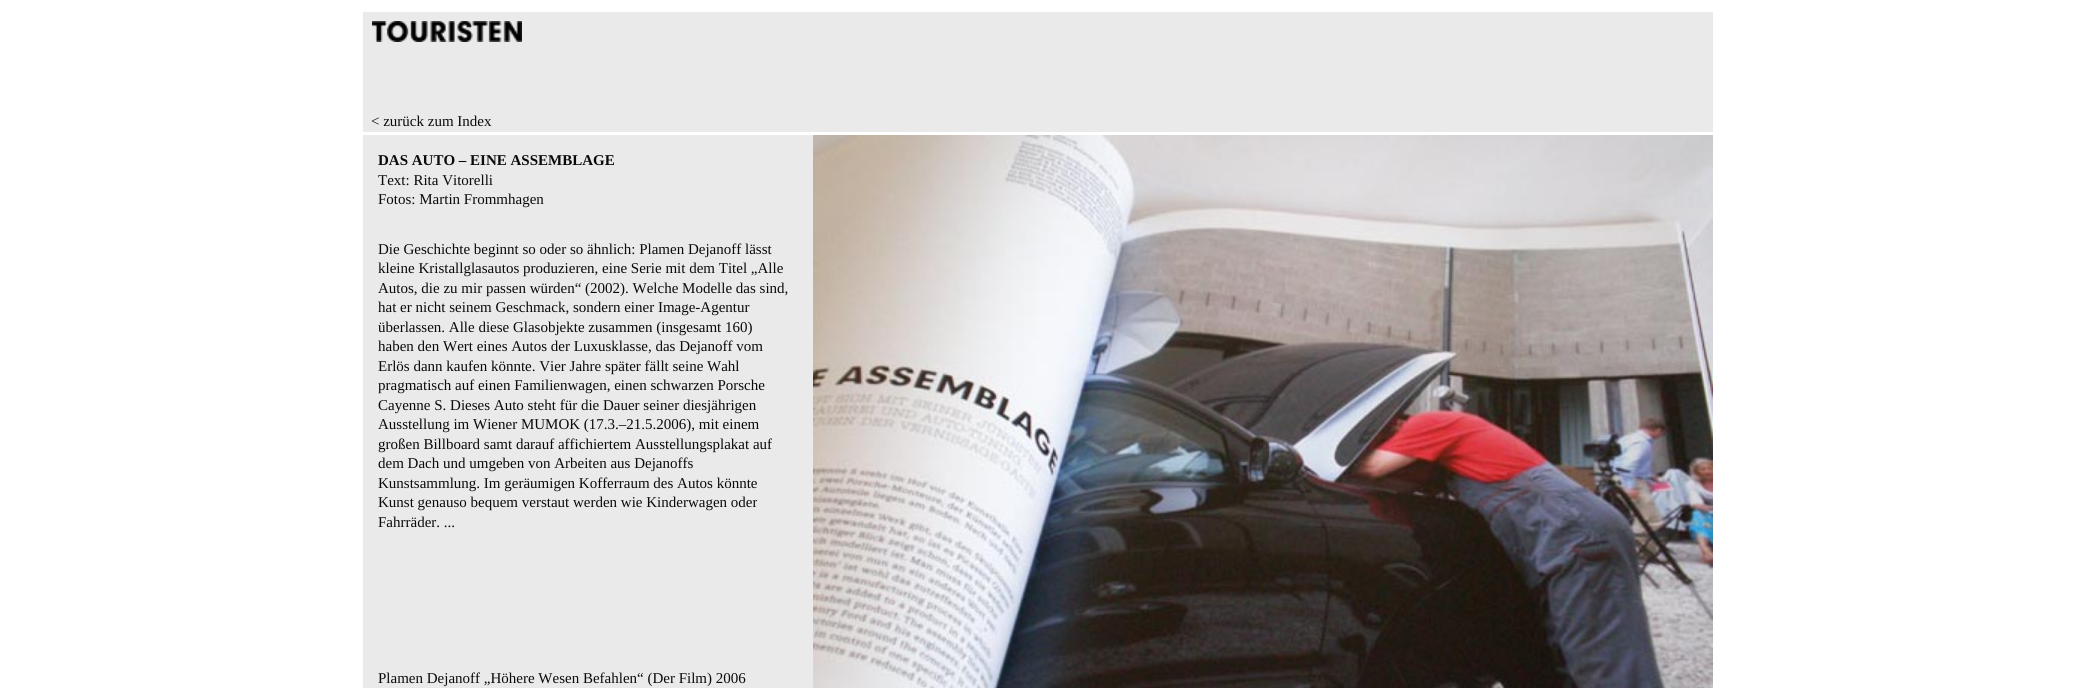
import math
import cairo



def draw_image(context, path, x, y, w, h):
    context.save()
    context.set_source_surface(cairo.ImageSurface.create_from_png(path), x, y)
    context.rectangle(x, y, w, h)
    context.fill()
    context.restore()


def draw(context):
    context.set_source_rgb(1, 1, 1)
    context.paint()
    context.set_source_rgb(234 / 255, 234 / 255, 234 / 255)
    context.rectangle(363, 12, 1350, 120)
    context.fill()
    draw_image(context, "images/1.png", 372, 21, 150, 21)
    context.rectangle(363, 135, 450, 553)
    context.fill()
    draw_image(context, "images/2.png", 813, 135, 900, 553)
    context.select_font_face("Liberation Serif")
    context.set_font_size(15)
    context.set_source_rgb(10 / 255, 10 / 255, 10 / 255)
    context.move_to(371, 126)
    context.show_text("< zurück zum Index")
    context.select_font_face("Liberation Serif", cairo.FontSlant.NORMAL, cairo.FontWeight.BOLD)
    context.move_to(378, 165)
    context.show_text("DAS AUTO – EINE ASSEMBLAGE")
    context.select_font_face("Liberation Serif")
    context.move_to(378, 185)
    context.show_text("Text: Rita Vitorelli")
    context.move_to(378, 204)
    context.show_text("Fotos: Martin Frommhagen")
    context.move_to(378, 254)
    context.show_text("Die Geschichte beginnt so oder so ähnlich: Plamen Dejanoff lässt")
    context.move_to(378, 273)
    context.show_text("kleine Kristallglasautos produzieren, eine Serie mit dem Titel „Alle")
    context.move_to(378, 293)
    context.show_text("Autos, die zu mir passen würden“ (2002). Welche Modelle das sind,")
    context.move_to(378, 312)
    context.show_text("hat er nicht seinem Geschmack, sondern einer Image-Agentur")
    context.move_to(378, 332)
    context.show_text("überlassen. Alle diese Glasobjekte zusammen (insgesamt 160)")
    context.move_to(378, 351)
    context.show_text("haben den Wert eines Autos der Luxusklasse, das Dejanoff vom")
    context.move_to(378, 371)
    context.show_text("Erlös dann kaufen könnte. Vier Jahre später fällt seine Wahl")
    context.move_to(378, 390)
    context.show_text("pragmatisch auf einen Familienwagen, einen schwarzen Porsche")
    context.move_to(378, 410)
    context.show_text("Cayenne S. Dieses Auto steht für die Dauer seiner diesjährigen")
    context.move_to(378, 429)
    context.show_text("Ausstellung im Wiener MUMOK (17.3.–21.5.2006), mit einem")
    context.move_to(378, 449)
    context.show_text("großen Billboard samt darauf affichiertem Ausstellungsplakat auf")
    context.move_to(378, 468)
    context.show_text("dem Dach und umgeben von Arbeiten aus Dejanoffs")
    context.move_to(378, 488)
    context.show_text("Kunstsammlung. Im geräumigen Kofferraum des Autos könnte")
    context.move_to(378, 507)
    context.show_text("Kunst genauso bequem verstaut werden wie Kinderwagen oder")
    context.move_to(378, 527)
    context.show_text("Fahrräder. ...")
    context.move_to(378, 683)
    context.show_text("Plamen Dejanoff „Höhere Wesen Befahlen“ (Der Film) 2006")


surface = cairo.ImageSurface(cairo.Format.RGB24, 2075, 688)
context = cairo.Context(surface)
options = cairo.FontOptions()
options.set_hint_metrics(cairo.HintMetrics.OFF)
options.set_hint_style(cairo.HintStyle.NONE)
context.set_font_options(options)
context.set_miter_limit(4)
draw(context)
surface.write_to_png("out.png")
